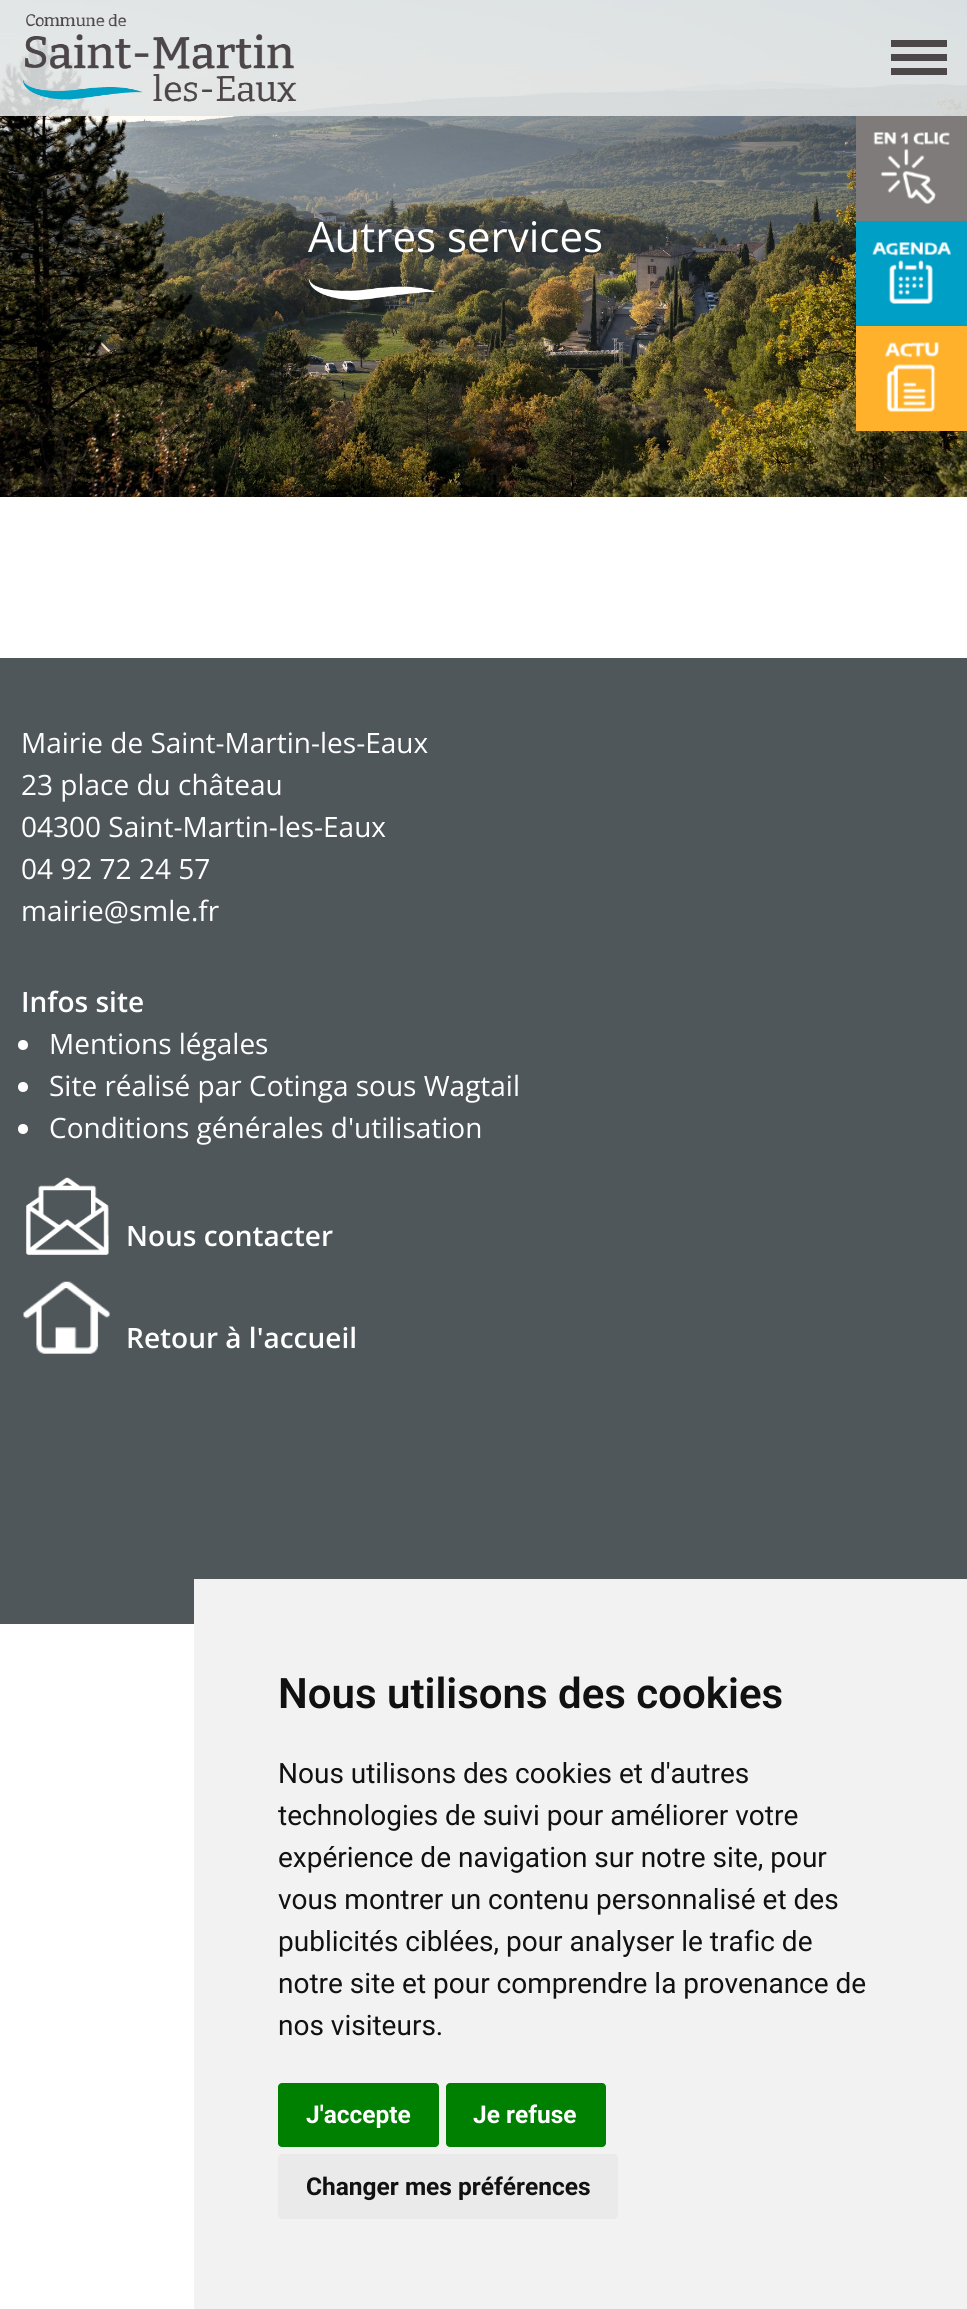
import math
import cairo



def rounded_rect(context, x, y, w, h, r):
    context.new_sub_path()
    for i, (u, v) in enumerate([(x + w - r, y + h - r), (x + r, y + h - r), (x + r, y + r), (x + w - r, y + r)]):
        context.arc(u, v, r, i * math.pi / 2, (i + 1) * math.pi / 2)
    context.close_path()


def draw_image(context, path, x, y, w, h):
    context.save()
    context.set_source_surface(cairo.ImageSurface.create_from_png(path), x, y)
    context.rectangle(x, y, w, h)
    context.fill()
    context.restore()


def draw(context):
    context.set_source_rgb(1, 1, 1)
    context.paint()
    draw_image(context, "images/5.png", 0, 0, 967, 497)
    context.set_source_rgba(225 / 255, 228 / 255, 228 / 255, 0.9)
    context.rectangle(0, 0, 967, 116)
    context.fill()
    draw_image(context, "images/1.png", 23, 14, 274, 88)
    context.set_source_rgb(76 / 255, 72 / 255, 73 / 255)
    context.rectangle(891, 40, 56, 7)
    context.fill()
    context.rectangle(891, 54, 56, 7)
    context.fill()
    context.rectangle(891, 68, 56, 7)
    context.fill()
    context.set_source_rgb(127 / 255, 123 / 255, 122 / 255)
    context.rectangle(856, 116, 111, 105)
    context.fill()
    draw_image(context, "images/2.png", 873, 132, 77, 72)
    context.set_source_rgb(0, 159 / 255, 198 / 255)
    context.rectangle(856, 221, 111, 105)
    context.fill()
    draw_image(context, "images/3.png", 872, 242, 79, 62)
    context.set_source_rgb(1, 177 / 255, 43 / 255)
    context.rectangle(856, 326, 111, 105)
    context.fill()
    draw_image(context, "images/4.png", 884, 342, 55, 70)
    draw_image(context, "images/6.png", 309, 279, 127, 21)
    context.set_source_rgb(79 / 255, 87 / 255, 90 / 255)
    context.rectangle(0, 658, 967, 966)
    context.fill()
    context.set_source_rgb(1, 1, 1)
    context.arc(23, 1045, 5, 0, 2 * math.pi)
    context.fill()
    context.arc(23, 1087, 5, 0, 2 * math.pi)
    context.fill()
    context.arc(23, 1129, 5, 0, 2 * math.pi)
    context.fill()
    draw_image(context, "images/7.png", 26, 1177, 83, 78)
    draw_image(context, "images/8.png", 23, 1281, 87, 73)
    context.set_source_rgb(242 / 255, 242 / 255, 242 / 255)
    context.rectangle(194, 1579, 773, 730)
    context.fill()
    context.set_source_rgb(0, 128 / 255, 0)
    rounded_rect(context, 278, 2083, 161, 64, 4)
    context.fill()
    rounded_rect(context, 446, 2083, 160, 64, 4)
    context.fill()
    context.set_source_rgb(234 / 255, 234 / 255, 234 / 255)
    rounded_rect(context, 278, 2154, 340, 65, 4)
    context.fill()
    context.select_font_face("Open Sans")
    context.set_font_size(42)
    context.set_source_rgb(1, 1, 1)
    context.move_to(308, 252)
    context.show_text("Autres services")
    context.set_font_size(28)
    context.move_to(21, 753)
    context.show_text("Mairie de Saint-Martin-les-Eaux")
    context.move_to(21, 795)
    context.show_text("23 place du château")
    context.move_to(21, 837)
    context.show_text("04300 Saint-Martin-les-Eaux")
    context.move_to(21, 879)
    context.show_text("04 92 72 24 57")
    context.move_to(21, 921)
    context.show_text("mairie@smle.fr")
    context.select_font_face("Open Sans SemiBold")
    context.move_to(21, 1012)
    context.show_text("Infos site")
    context.select_font_face("Open Sans")
    context.move_to(49, 1054)
    context.show_text("Mentions légales")
    context.move_to(49, 1096)
    context.show_text("Site réalisé par Cotinga sous Wagtail")
    context.move_to(49, 1138)
    context.show_text("Conditions générales d'utilisation")
    context.select_font_face("Open Sans SemiBold")
    context.move_to(126, 1246)
    context.show_text("Nous contacter")
    context.move_to(126, 1348)
    context.show_text("Retour à l'accueil")
    context.select_font_face("Roboto SemiBold")
    context.set_font_size(42)
    context.set_source_rgb(17 / 255, 17 / 255, 17 / 255)
    context.move_to(278, 1708)
    context.show_text("Nous utilisons des cookies")
    context.select_font_face("Roboto")
    context.set_font_size(28)
    context.move_to(278, 1783)
    context.show_text("Nous utilisons des cookies et d'autres")
    context.move_to(278, 1825)
    context.show_text("technologies de suivi pour améliorer votre")
    context.move_to(278, 1867)
    context.show_text("expérience de navigation sur notre site, pour")
    context.move_to(278, 1909)
    context.show_text("vous montrer un contenu personnalisé et des")
    context.move_to(278, 1951)
    context.show_text("publicités ciblées, pour analyser le trafic de")
    context.move_to(278, 1993)
    context.show_text("notre site et pour comprendre la provenance de")
    context.move_to(278, 2035)
    context.show_text("nos visiteurs.")
    context.select_font_face("Roboto", cairo.FontSlant.NORMAL, cairo.FontWeight.BOLD)
    context.set_font_size(24.5)
    context.set_source_rgb(1, 1, 1)
    context.move_to(306, 2123)
    context.show_text("J'accepte")
    context.move_to(473, 2123)
    context.show_text("Je refuse")
    context.set_source_rgb(17 / 255, 17 / 255, 17 / 255)
    context.move_to(306, 2195)
    context.show_text("Changer mes préférences")


surface = cairo.ImageSurface(cairo.Format.RGB24, 967, 2309)
context = cairo.Context(surface)
options = cairo.FontOptions()
options.set_hint_metrics(cairo.HintMetrics.OFF)
options.set_hint_style(cairo.HintStyle.NONE)
context.set_font_options(options)
context.set_miter_limit(4)
draw(context)
surface.write_to_png("out.png")
